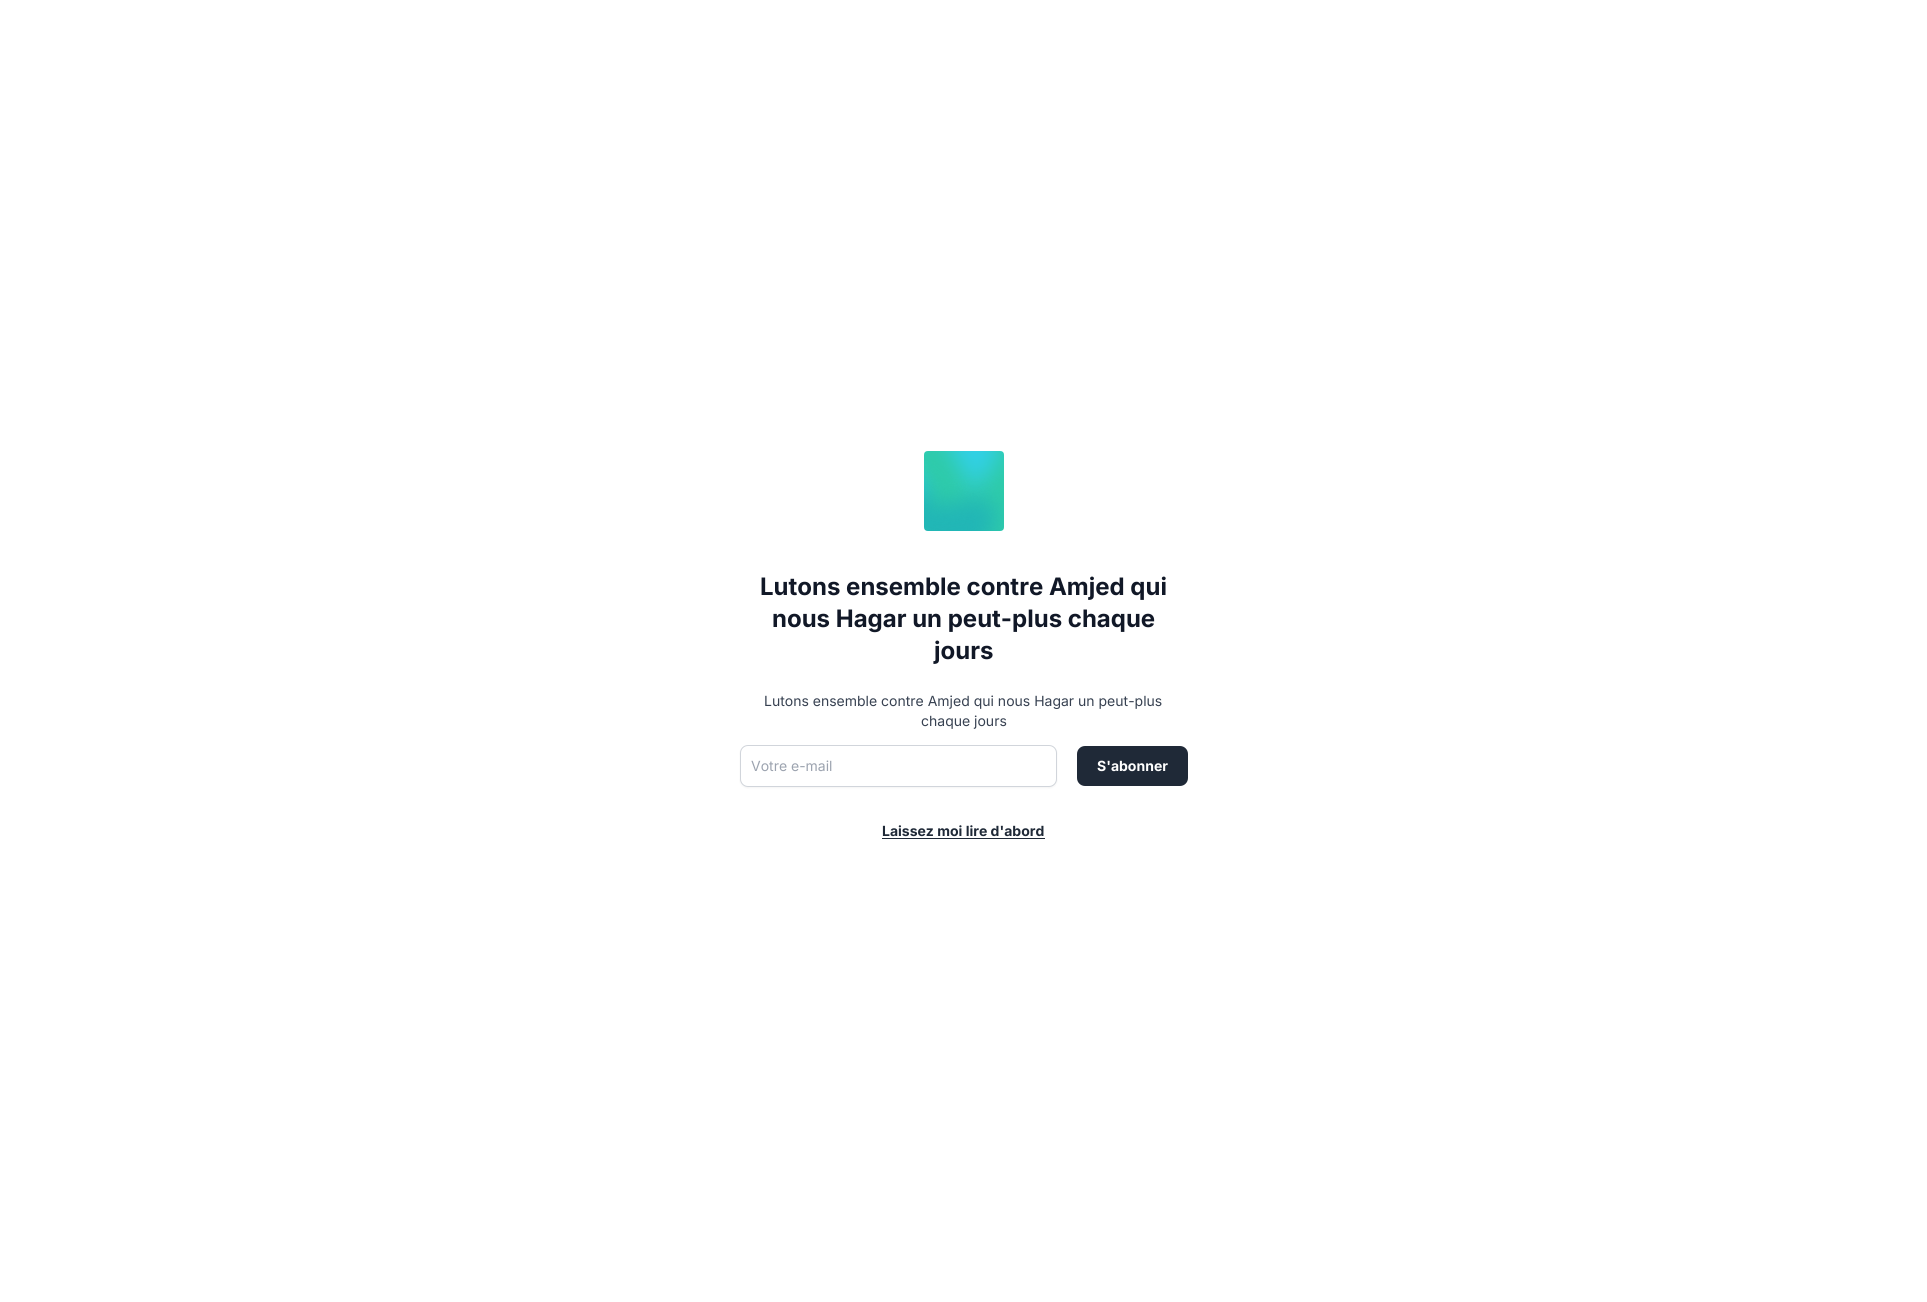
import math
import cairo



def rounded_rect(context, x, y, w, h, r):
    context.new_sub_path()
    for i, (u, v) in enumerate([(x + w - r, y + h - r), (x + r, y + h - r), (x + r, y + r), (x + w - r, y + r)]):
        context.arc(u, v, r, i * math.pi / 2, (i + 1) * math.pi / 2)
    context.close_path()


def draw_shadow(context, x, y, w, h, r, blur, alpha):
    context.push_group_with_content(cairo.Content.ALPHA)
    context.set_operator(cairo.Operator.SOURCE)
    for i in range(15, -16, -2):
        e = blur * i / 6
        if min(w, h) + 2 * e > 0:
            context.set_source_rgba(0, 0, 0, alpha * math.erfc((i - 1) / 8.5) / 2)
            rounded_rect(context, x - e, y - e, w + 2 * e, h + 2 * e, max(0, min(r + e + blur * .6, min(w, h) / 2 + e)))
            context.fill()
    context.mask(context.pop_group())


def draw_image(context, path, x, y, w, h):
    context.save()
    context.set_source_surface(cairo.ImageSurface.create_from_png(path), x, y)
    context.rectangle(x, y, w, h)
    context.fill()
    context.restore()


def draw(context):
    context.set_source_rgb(1, 1, 1)
    context.paint()
    draw_image(context, "images/1.png", 924, 451, 80, 80)
    context.set_source_rgb(0, 0, 0)
    draw_shadow(context, 740, 746, 317, 42, 8, 1, 0.05)
    context.set_source_rgb(1, 1, 1)
    rounded_rect(context, 740.5, 745.5, 316, 41, 7.5)
    context.fill_preserve()
    context.set_source_rgb(209 / 255, 213 / 255, 219 / 255)
    context.set_line_width(1)
    context.stroke()
    context.set_source_rgb(31 / 255, 41 / 255, 55 / 255)
    rounded_rect(context, 1077, 746, 111, 40, 8)
    context.fill()
    context.rectangle(882, 838, 163, 1)
    context.fill()
    context.select_font_face("Inter", cairo.FontSlant.NORMAL, cairo.FontWeight.BOLD)
    context.set_font_size(24)
    context.set_source_rgb(17 / 255, 24 / 255, 39 / 255)
    context.move_to(760, 595)
    context.show_text("Lutons ensemble contre Amjed qui")
    context.move_to(772, 627)
    context.show_text("nous Hagar un peut-plus chaque")
    context.move_to(934, 659)
    context.show_text("jours")
    context.select_font_face("Inter")
    context.set_font_size(14)
    context.set_source_rgb(55 / 255, 65 / 255, 81 / 255)
    context.move_to(764, 706)
    context.show_text("Lutons ensemble contre Amjed qui nous Hagar un peut-plus")
    context.move_to(921, 726)
    context.show_text("chaque jours")
    context.set_source_rgb(156 / 255, 163 / 255, 175 / 255)
    context.move_to(751, 771)
    context.show_text("Votre e-mail")
    context.select_font_face("Inter", cairo.FontSlant.NORMAL, cairo.FontWeight.BOLD)
    context.set_source_rgb(1, 1, 1)
    context.move_to(1097, 771)
    context.show_text("S'abonner")
    context.set_source_rgb(31 / 255, 41 / 255, 55 / 255)
    context.move_to(882, 836)
    context.show_text("Laissez moi lire d'abord")


surface = cairo.ImageSurface(cairo.Format.RGB24, 1927, 1302)
context = cairo.Context(surface)
options = cairo.FontOptions()
options.set_hint_metrics(cairo.HintMetrics.OFF)
options.set_hint_style(cairo.HintStyle.NONE)
context.set_font_options(options)
context.set_miter_limit(4)
draw(context)
surface.write_to_png("out.png")
